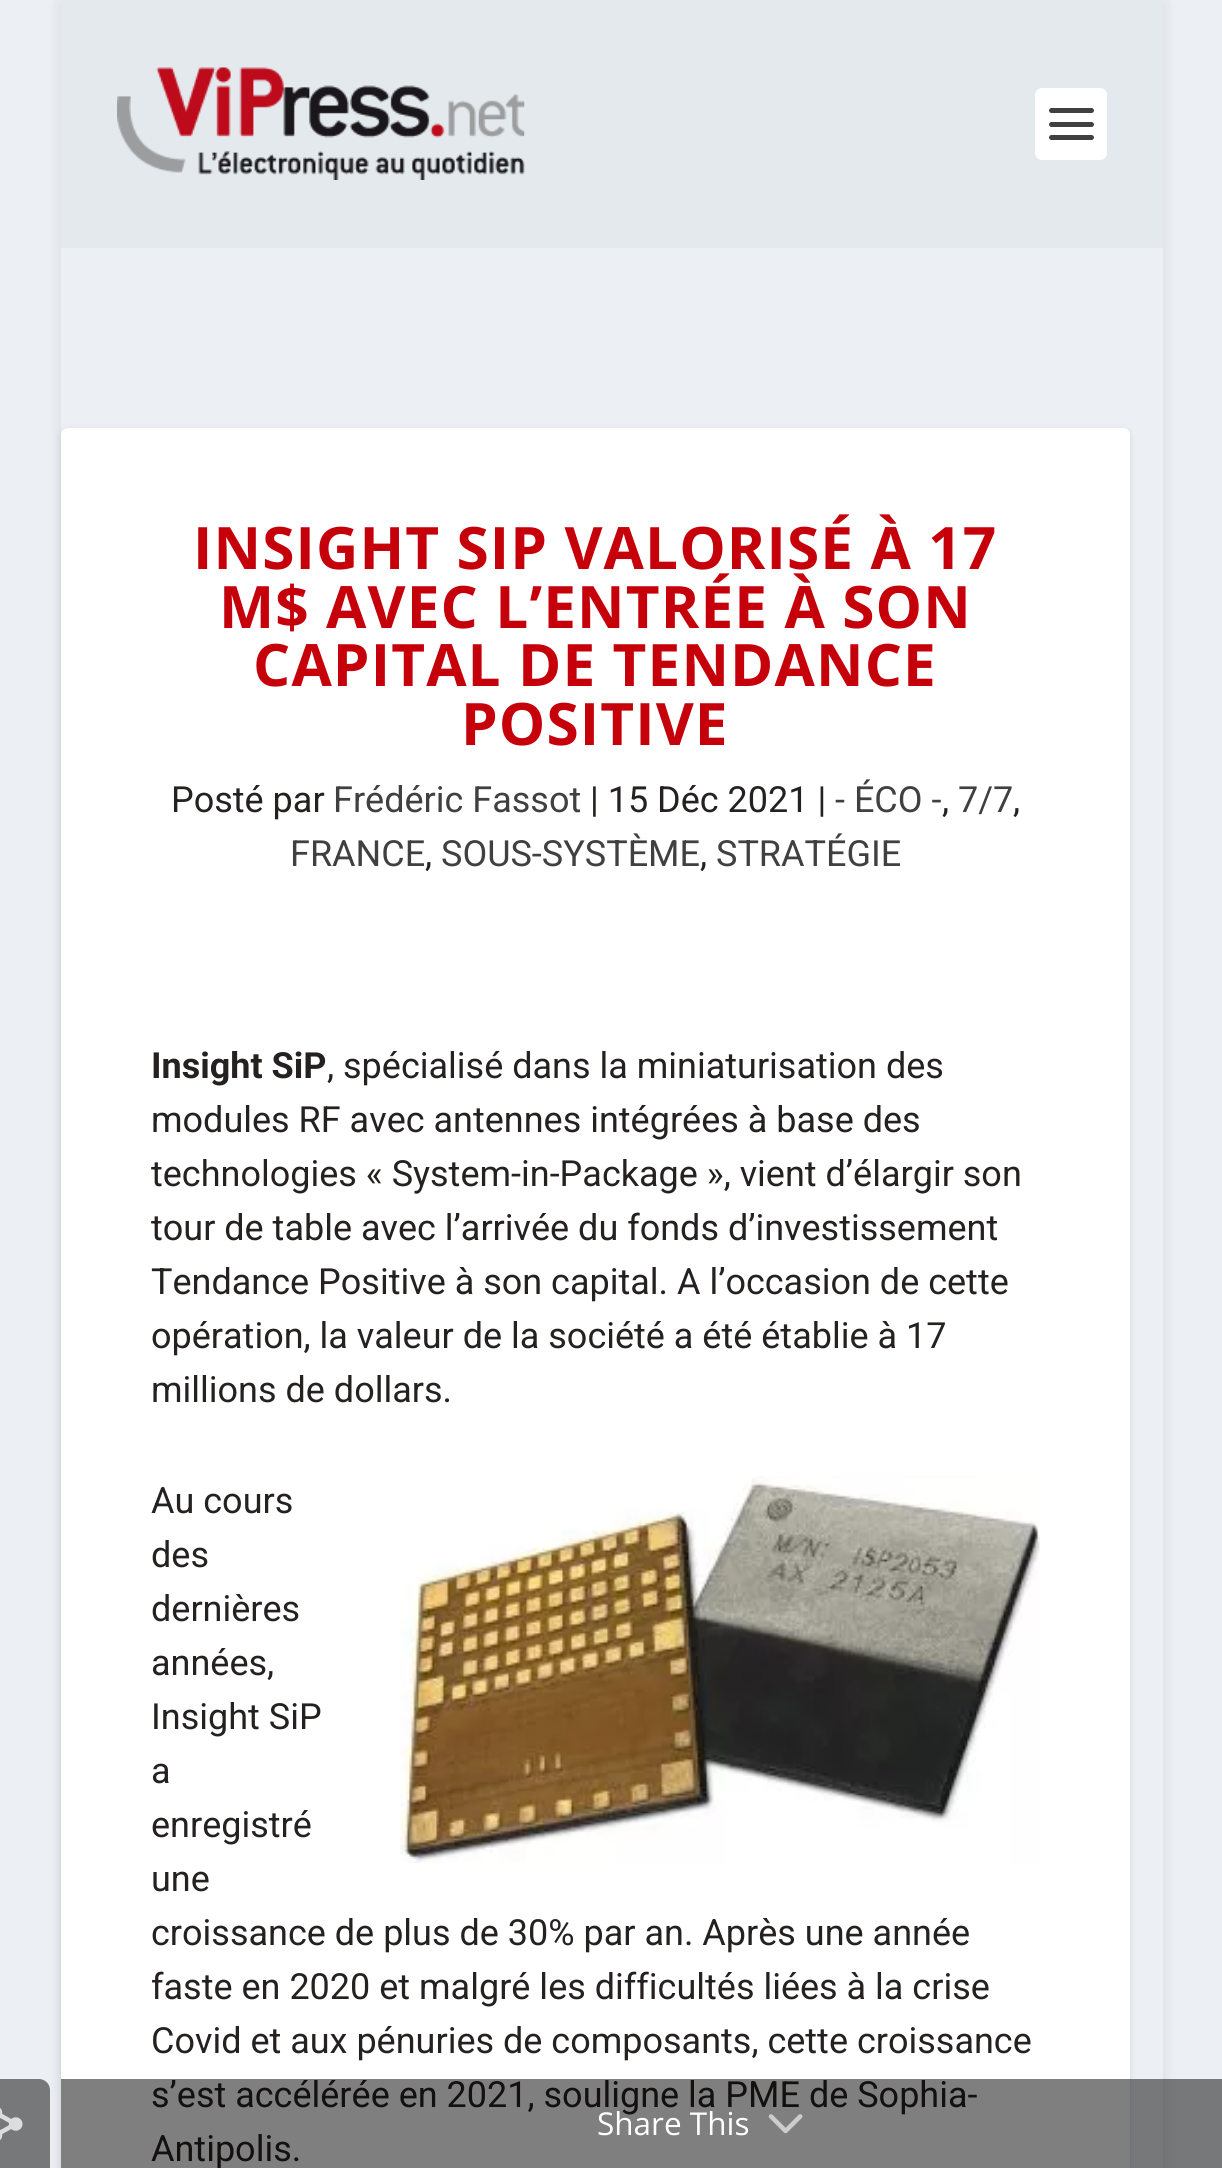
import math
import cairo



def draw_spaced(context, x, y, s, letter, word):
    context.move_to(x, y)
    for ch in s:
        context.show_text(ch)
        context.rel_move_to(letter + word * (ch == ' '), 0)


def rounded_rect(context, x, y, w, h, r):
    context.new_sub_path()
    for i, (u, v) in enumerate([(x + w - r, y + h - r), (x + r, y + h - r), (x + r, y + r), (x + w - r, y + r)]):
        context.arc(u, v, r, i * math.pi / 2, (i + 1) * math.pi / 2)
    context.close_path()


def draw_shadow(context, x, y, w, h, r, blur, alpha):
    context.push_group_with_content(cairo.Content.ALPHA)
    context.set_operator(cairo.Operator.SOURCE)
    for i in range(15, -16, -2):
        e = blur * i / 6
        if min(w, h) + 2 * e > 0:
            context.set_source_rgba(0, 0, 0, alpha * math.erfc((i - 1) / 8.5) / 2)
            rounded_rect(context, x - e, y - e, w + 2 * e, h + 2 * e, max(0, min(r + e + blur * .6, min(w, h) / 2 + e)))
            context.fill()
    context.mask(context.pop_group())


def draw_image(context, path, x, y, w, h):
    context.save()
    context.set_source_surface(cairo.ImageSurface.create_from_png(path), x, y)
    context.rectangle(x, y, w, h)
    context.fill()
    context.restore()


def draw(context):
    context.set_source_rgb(236 / 255, 240 / 255, 245 / 255)
    context.paint()
    context.save()
    context.set_fill_rule(cairo.FillRule.EVEN_ODD)
    context.new_path()
    context.move_to(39, 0)
    context.line_to(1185, 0)
    context.line_to(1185, 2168)
    context.line_to(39, 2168)
    context.close_path()
    context.move_to(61, 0)
    context.line_to(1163, 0)
    context.line_to(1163, 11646)
    context.line_to(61, 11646)
    context.close_path()
    context.clip()
    context.set_source_rgb(0, 0, 0)
    draw_shadow(context, 61, 2, 1102, 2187, 0, 7, 0.1)
    context.restore()
    context.set_source_rgb(0, 0, 0)
    draw_shadow(context, 61, 430, 1069, 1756, 7, 3.5, 0.1)
    context.set_source_rgb(118 / 255, 120 / 255, 122 / 255)
    context.new_path()
    context.move_to(-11, 2079)
    context.line_to(39, 2079)
    context.curve_to(45, 2079, 50, 2084, 50, 2090)
    context.line_to(50, 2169)
    context.line_to(-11, 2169)
    context.close_path()
    context.fill()
    draw_image(context, "images/1.png", 0, 2108, 23, 32)
    context.set_source_rgb(227 / 255, 233 / 255, 237 / 255)
    context.rectangle(61, 0, 1102, 248)
    context.fill()
    draw_image(context, "images/2.png", 117, 67, 408, 113)
    context.set_source_rgb(1, 1, 1)
    rounded_rect(context, 1035, 88, 72, 72, 7)
    context.fill()
    context.set_source_rgb(64 / 255, 64 / 255, 64 / 255)
    rounded_rect(context, 1049, 108, 45, 5, 2.5)
    context.fill()
    rounded_rect(context, 1049, 122, 45, 5, 2.5)
    context.fill()
    rounded_rect(context, 1049, 135, 45, 5, 2.5)
    context.fill()
    context.set_source_rgb(1, 1, 1)
    rounded_rect(context, 61, 428, 1069, 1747, 7)
    context.fill()
    draw_image(context, "images/3.png", 400, 1476, 640, 387)
    context.select_font_face("Open Sans", cairo.FontSlant.NORMAL, cairo.FontWeight.BOLD)
    context.set_font_size(58.5)
    context.set_source_rgb(197 / 255, 0, 11 / 255)
    draw_spaced(context, 193, 569, "INSIGHT SIP VALORISÉ À 17", 1.1, 0)
    draw_spaced(context, 219, 628, "M$ AVEC L’ENTRÉE À SON", 1.1, 0)
    draw_spaced(context, 253, 686, "CAPITAL DE TENDANCE", 1.1, 0)
    draw_spaced(context, 461, 745, "POSITIVE", 1.1, 0)
    context.select_font_face("Roboto")
    context.set_font_size(36)
    context.set_source_rgb(38 / 255, 33 / 255, 33 / 255)
    context.move_to(171, 812)
    context.show_text("Posté par")
    context.set_source_rgb(64 / 255, 64 / 255, 64 / 255)
    context.move_to(333, 812)
    context.show_text("Frédéric Fassot")
    context.set_source_rgb(38 / 255, 33 / 255, 33 / 255)
    context.move_to(590, 812)
    context.show_text("| 15 Déc 2021 |")
    context.set_source_rgb(64 / 255, 64 / 255, 64 / 255)
    context.move_to(835, 812)
    context.show_text("- ÉCO -")
    context.set_source_rgb(38 / 255, 33 / 255, 33 / 255)
    context.move_to(942, 812)
    context.show_text(",")
    context.set_source_rgb(64 / 255, 64 / 255, 64 / 255)
    context.move_to(958, 812)
    context.show_text("7/7")
    context.set_source_rgb(38 / 255, 33 / 255, 33 / 255)
    context.move_to(1013, 812)
    context.show_text(",")
    context.set_source_rgb(64 / 255, 64 / 255, 64 / 255)
    context.move_to(290, 866)
    context.show_text("FRANCE")
    context.set_source_rgb(38 / 255, 33 / 255, 33 / 255)
    context.move_to(425, 866)
    context.show_text(",")
    context.set_source_rgb(64 / 255, 64 / 255, 64 / 255)
    context.move_to(441, 866)
    context.show_text("SOUS-SYSTÈME")
    context.set_source_rgb(38 / 255, 33 / 255, 33 / 255)
    context.move_to(700, 866)
    context.show_text(",")
    context.set_source_rgb(64 / 255, 64 / 255, 64 / 255)
    context.move_to(716, 866)
    context.show_text("STRATÉGIE")
    context.select_font_face("Roboto", cairo.FontSlant.NORMAL, cairo.FontWeight.BOLD)
    context.set_source_rgb(38 / 255, 33 / 255, 33 / 255)
    context.move_to(151, 1078)
    context.show_text("Insight SiP")
    context.select_font_face("Roboto")
    context.move_to(327, 1078)
    context.show_text(", spécialisé dans la miniaturisation des")
    context.move_to(151, 1132)
    context.show_text("modules RF avec antennes intégrées à base des")
    context.move_to(151, 1186)
    context.show_text("technologies « System-in-Package », vient d’élargir son")
    context.move_to(151, 1240)
    context.show_text("tour de table avec l’arrivée du fonds d’investissement")
    context.move_to(151, 1294)
    context.show_text("Tendance Positive à son capital. A l’occasion de cette")
    context.move_to(151, 1348)
    context.show_text("opération, la valeur de la société a été établie à 17")
    context.move_to(151, 1402)
    context.show_text("millions de dollars.")
    context.move_to(151, 1513)
    context.show_text("Au cours")
    context.move_to(151, 1567)
    context.show_text("des")
    context.move_to(151, 1621)
    context.show_text("dernières")
    context.move_to(151, 1675)
    context.show_text("années,")
    context.move_to(151, 1729)
    context.show_text("Insight SiP")
    context.move_to(151, 1783)
    context.show_text("a")
    context.move_to(151, 1837)
    context.show_text("enregistré")
    context.move_to(151, 1891)
    context.show_text("une")
    context.move_to(151, 1945)
    context.show_text("croissance de plus de 30% par an. Après une année")
    context.move_to(151, 1999)
    context.show_text("faste en 2020 et malgré les difficultés liées à la crise")
    context.move_to(151, 2053)
    context.show_text("Covid et aux pénuries de composants, cette croissance")
    context.move_to(151, 2107)
    context.show_text("s’est accélérée en 2021, souligne la PME de Sophia-")
    context.move_to(151, 2161)
    context.show_text("Antipolis.")
    context.set_source_rgba(0, 0, 0, 0.5)
    context.rectangle(61, 2079, 1161, 89)
    context.fill()
    context.select_font_face("Open Sans")
    context.set_font_size(31.5)
    context.set_source_rgb(1, 1, 1)
    context.move_to(597, 2135)
    context.show_text("Share This")
    draw_image(context, "images/4.png", 768, 2114, 35, 20)


surface = cairo.ImageSurface(cairo.Format.RGB24, 1222, 2168)
context = cairo.Context(surface)
options = cairo.FontOptions()
options.set_hint_metrics(cairo.HintMetrics.OFF)
options.set_hint_style(cairo.HintStyle.NONE)
context.set_font_options(options)
context.set_miter_limit(4)
draw(context)
surface.write_to_png("out.png")
